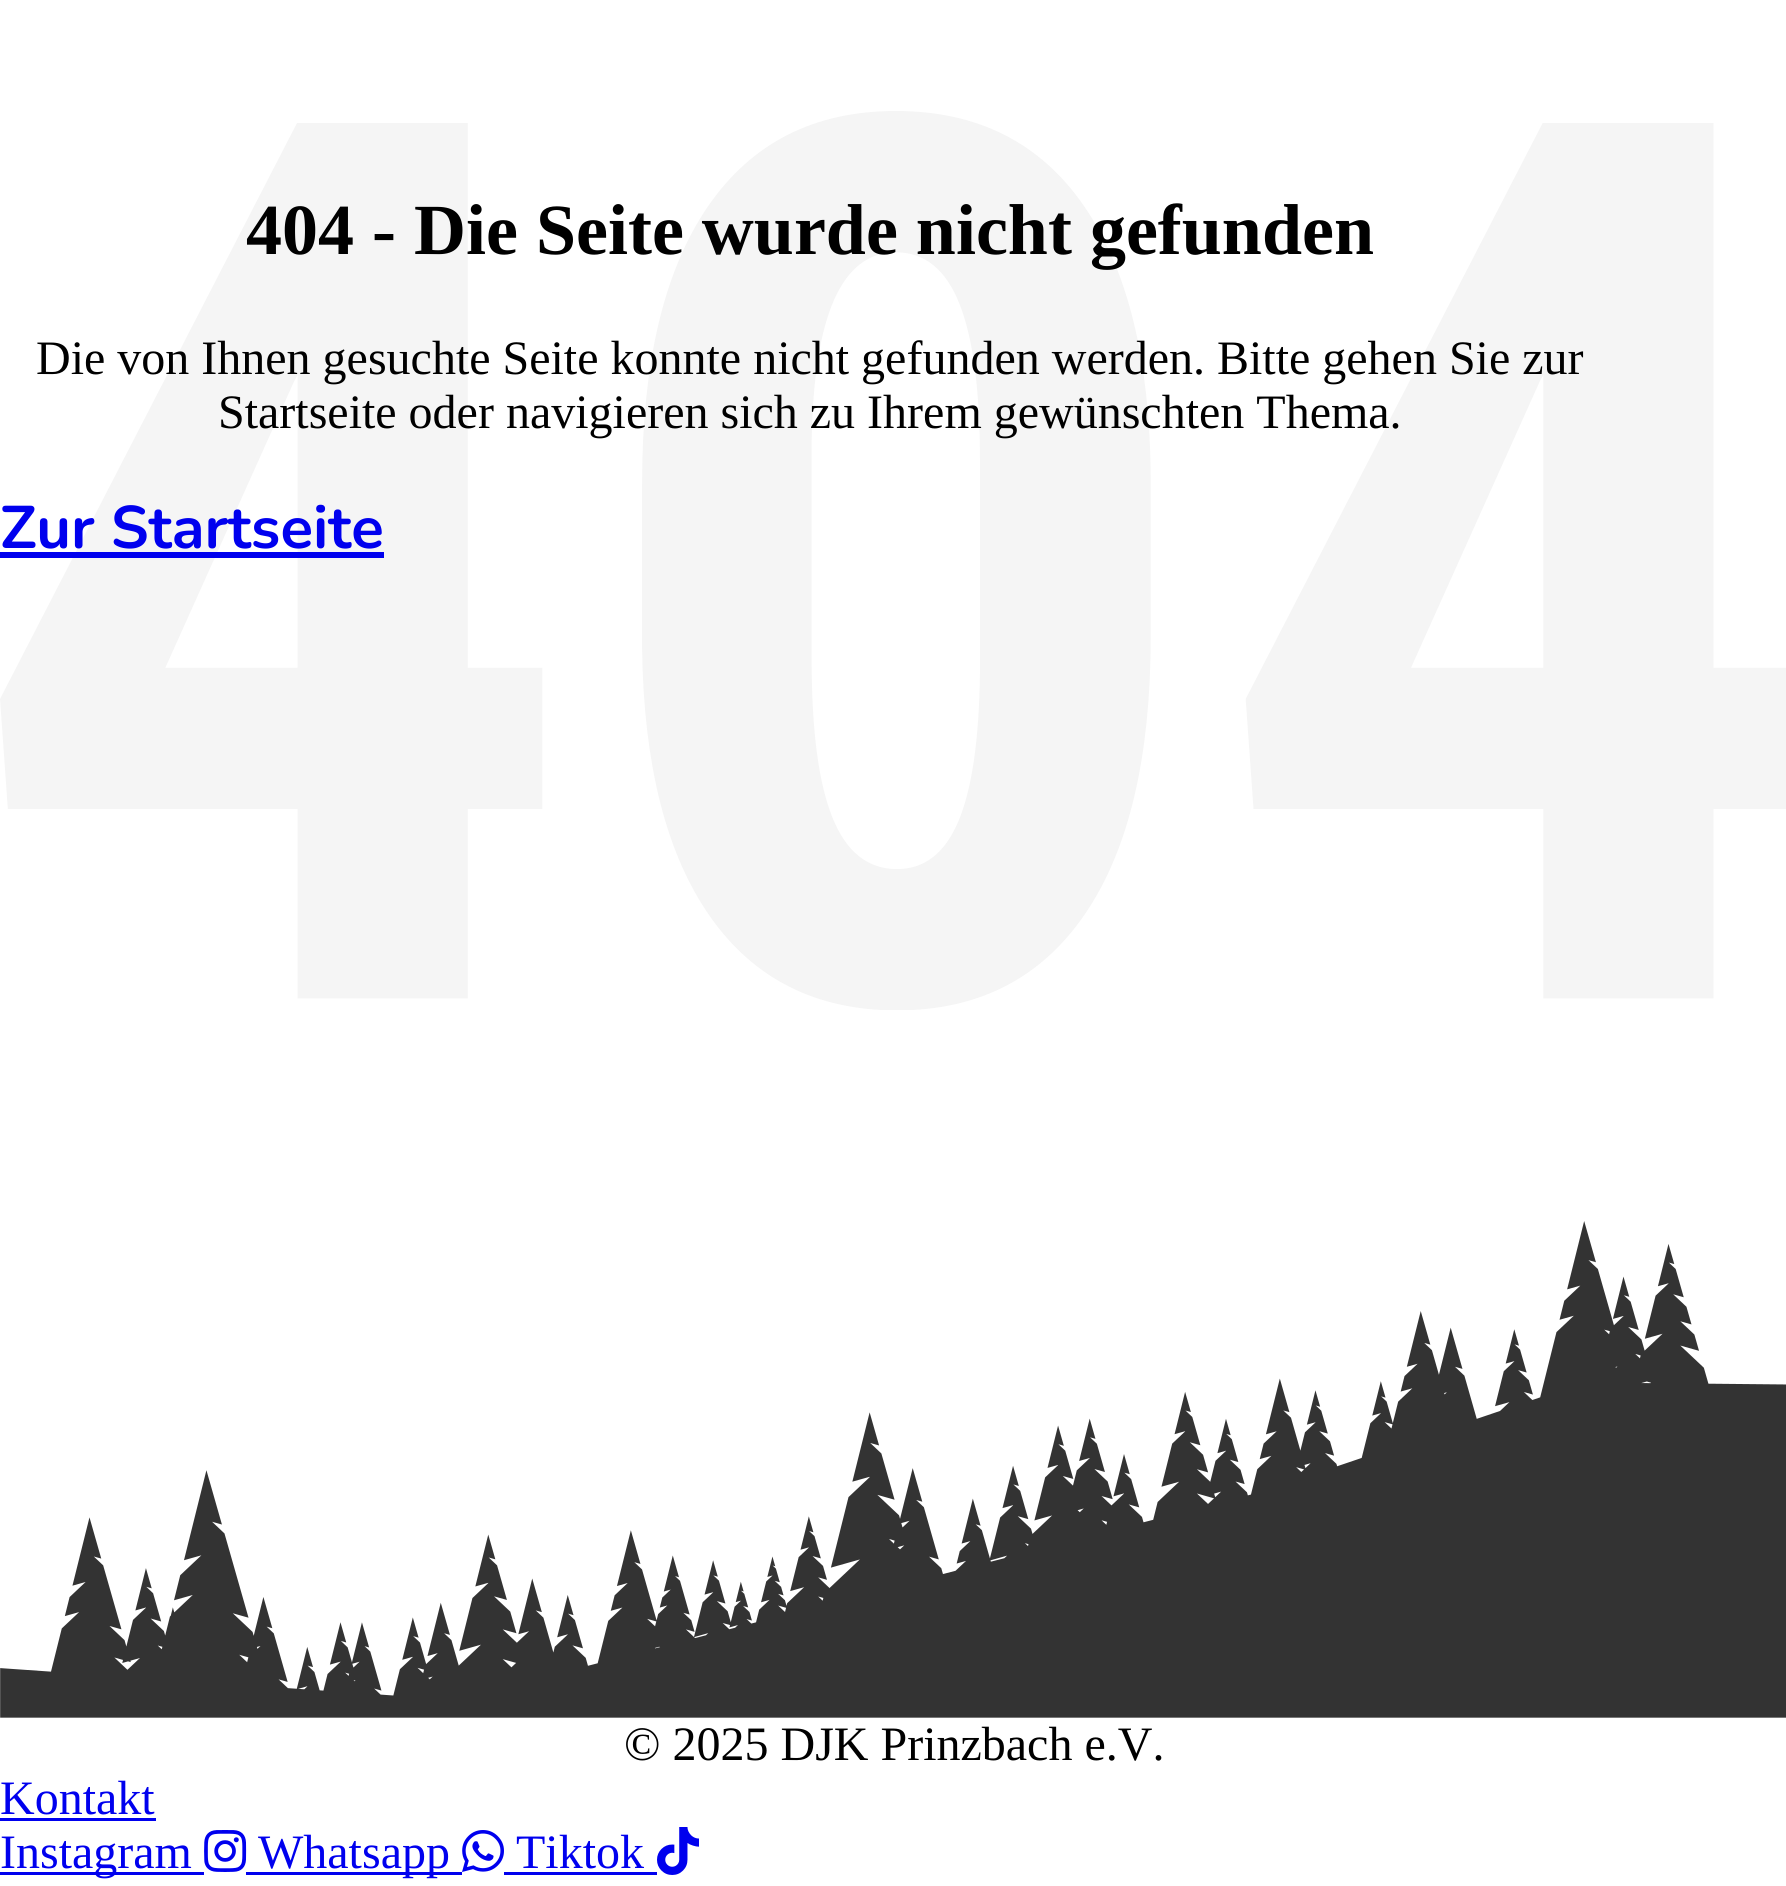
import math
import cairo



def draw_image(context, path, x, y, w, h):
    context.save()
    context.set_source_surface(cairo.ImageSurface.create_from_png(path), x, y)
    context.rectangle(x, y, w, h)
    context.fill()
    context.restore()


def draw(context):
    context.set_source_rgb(1, 1, 1)
    context.paint()
    draw_image(context, "images/1.png", 0, 111, 1786, 899)
    context.set_source_rgb(0, 0, 238 / 255)
    context.rectangle(0, 552, 384, 6)
    context.fill()
    draw_image(context, "images/2.png", 0, 1221, 1786, 497)
    context.rectangle(0, 1818, 156, 3)
    context.fill()
    context.rectangle(0, 1872, 204, 3)
    context.fill()
    draw_image(context, "images/3.png", 204, 1830, 43, 42)
    context.rectangle(246, 1872, 216, 3)
    context.fill()
    draw_image(context, "images/4.png", 462, 1830, 42, 42)
    context.rectangle(504, 1872, 153, 3)
    context.fill()
    draw_image(context, "images/5.png", 657, 1827, 42, 48)
    context.select_font_face("Liberation Serif", cairo.FontSlant.NORMAL, cairo.FontWeight.BOLD)
    context.set_font_size(72)
    context.set_source_rgb(0, 0, 0)
    context.move_to(246, 254)
    context.show_text("404 - Die Seite wurde nicht gefunden")
    context.select_font_face("Liberation Serif")
    context.set_font_size(48)
    context.move_to(36, 374)
    context.show_text("Die von Ihnen gesuchte Seite konnte nicht gefunden werden. Bitte gehen Sie zur")
    context.move_to(218, 428)
    context.show_text("Startseite oder navigieren sich zu Ihrem gewünschten Thema.")
    context.select_font_face("Nunito", cairo.FontSlant.NORMAL, cairo.FontWeight.BOLD)
    context.set_font_size(60)
    context.set_source_rgb(0, 0, 238 / 255)
    context.move_to(0, 548)
    context.show_text("Zur Startseite")
    context.select_font_face("Liberation Serif")
    context.set_font_size(48)
    context.set_source_rgb(0, 0, 0)
    context.move_to(624, 1760)
    context.show_text("© 2025 DJK Prinzbach e.V.")
    context.set_source_rgb(0, 0, 238 / 255)
    context.move_to(0, 1814)
    context.show_text("Kontakt")
    context.move_to(0, 1868)
    context.show_text("Instagram")
    context.move_to(258, 1868)
    context.show_text("Whatsapp")
    context.move_to(516, 1868)
    context.show_text("Tiktok")


surface = cairo.ImageSurface(cairo.Format.RGB24, 1786, 1886)
context = cairo.Context(surface)
options = cairo.FontOptions()
options.set_hint_metrics(cairo.HintMetrics.OFF)
options.set_hint_style(cairo.HintStyle.NONE)
context.set_font_options(options)
context.set_miter_limit(4)
draw(context)
surface.write_to_png("out.png")
